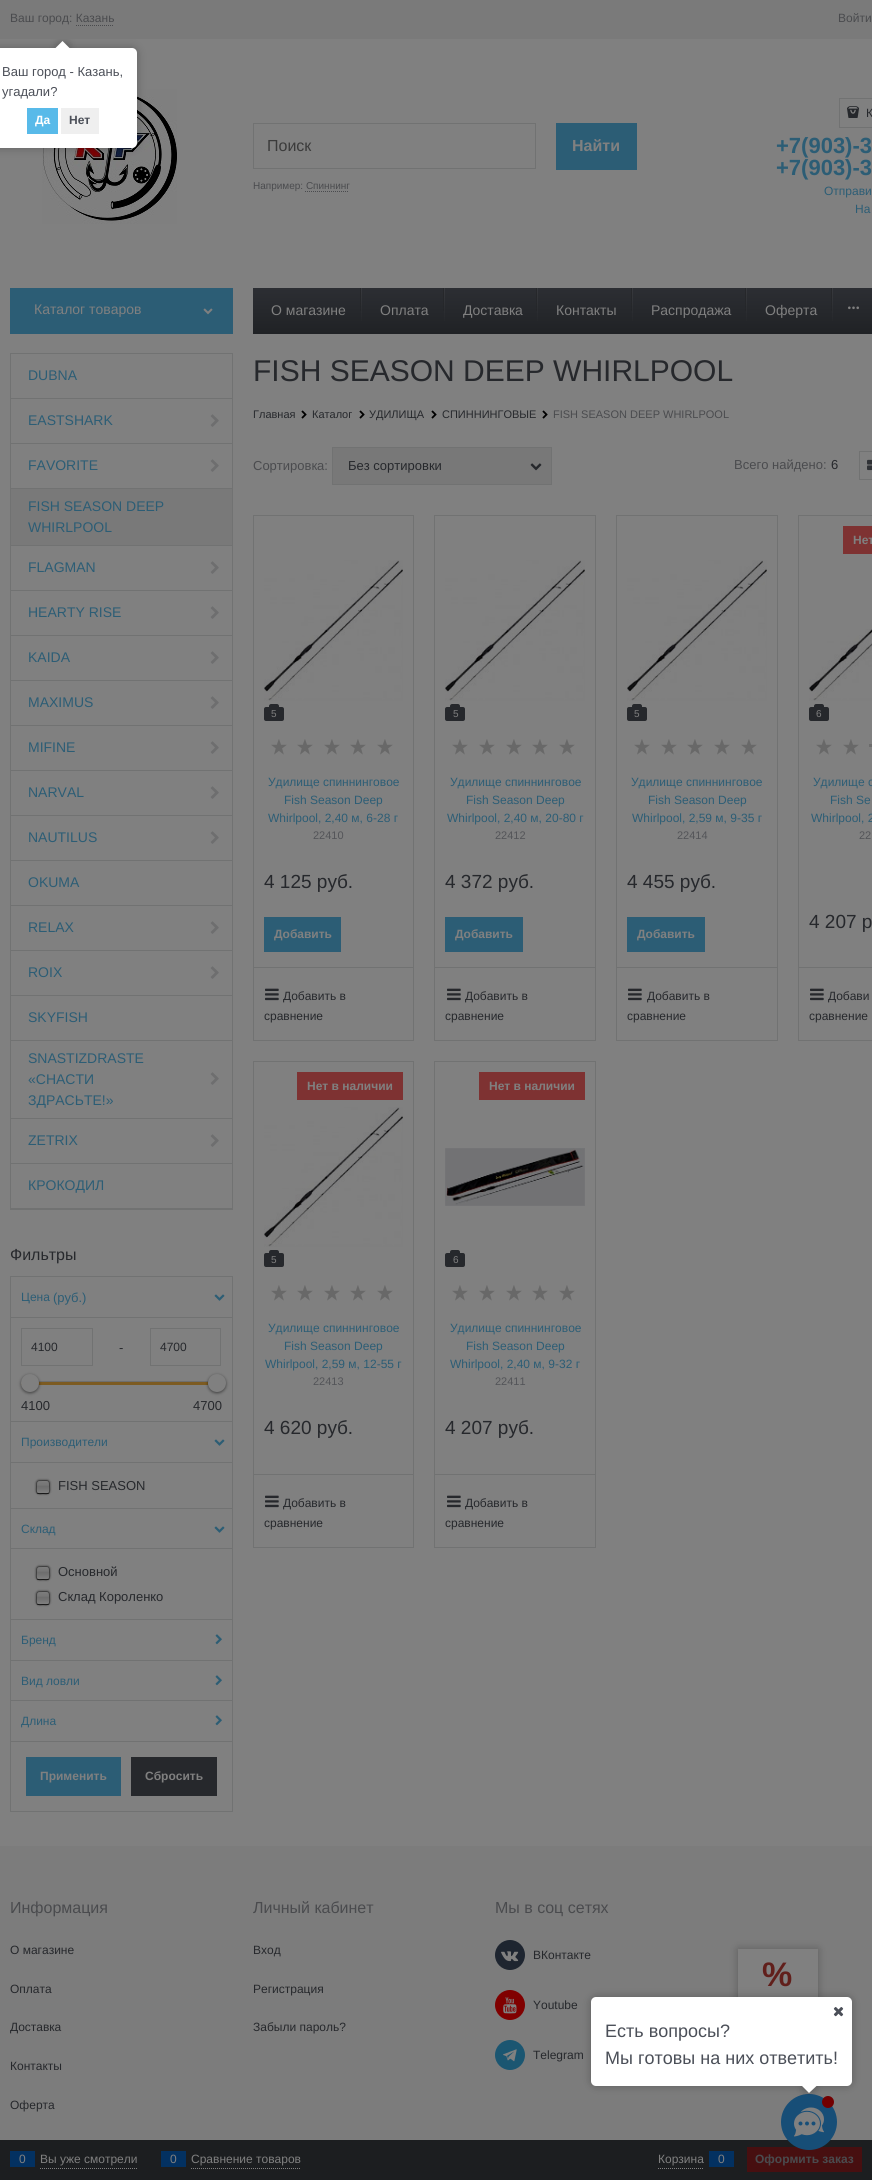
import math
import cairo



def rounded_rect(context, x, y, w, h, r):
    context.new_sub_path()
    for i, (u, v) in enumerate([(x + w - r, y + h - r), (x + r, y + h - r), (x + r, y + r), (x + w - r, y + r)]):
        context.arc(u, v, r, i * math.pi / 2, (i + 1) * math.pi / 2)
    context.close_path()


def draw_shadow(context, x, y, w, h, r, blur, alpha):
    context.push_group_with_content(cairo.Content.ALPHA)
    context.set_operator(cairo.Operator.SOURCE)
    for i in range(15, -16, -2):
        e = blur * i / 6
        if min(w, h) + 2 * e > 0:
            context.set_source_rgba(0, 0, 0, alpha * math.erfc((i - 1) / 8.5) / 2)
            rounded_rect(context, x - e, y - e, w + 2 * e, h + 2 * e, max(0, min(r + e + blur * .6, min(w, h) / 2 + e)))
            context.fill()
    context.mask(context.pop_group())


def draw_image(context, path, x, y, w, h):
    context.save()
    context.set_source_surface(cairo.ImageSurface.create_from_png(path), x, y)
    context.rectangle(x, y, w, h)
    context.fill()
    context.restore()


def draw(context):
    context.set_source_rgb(128 / 255, 128 / 255, 128 / 255)
    context.paint()
    context.set_source_rgb(122 / 255, 122 / 255, 122 / 255)
    context.rectangle(0, 0, 872, 39)
    context.fill()
    context.new_path()
    context.move_to(76, 25.5)
    context.line_to(114, 25.5)
    context.set_source_rgb(74 / 255, 75 / 255, 78 / 255)
    context.set_line_width(1)
    context.set_dash([1, 1])
    context.stroke()
    draw_image(context, "images/1.png", 42, 89, 135, 135)
    context.rectangle(253.5, 123.5, 282, 45)
    context.set_source_rgb(113 / 255, 114 / 255, 114 / 255)
    context.set_dash([])
    context.stroke()
    context.new_path()
    context.move_to(305, 191.5)
    context.line_to(349, 191.5)
    context.set_source_rgb(74 / 255, 75 / 255, 78 / 255)
    context.set_dash([1, 1])
    context.stroke()
    context.set_source_rgb(44 / 255, 93 / 255, 117 / 255)
    context.rectangle(556, 123, 81, 47)
    context.fill()
    context.rectangle(839.5, 98.5, 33, 29)
    context.set_source_rgb(113 / 255, 114 / 255, 114 / 255)
    context.set_dash([])
    context.stroke()
    draw_image(context, "images/2.png", 847, 106, 12, 12)
    context.set_source_rgb(44 / 255, 93 / 255, 117 / 255)
    context.rectangle(10, 288, 223, 46)
    context.fill()
    draw_image(context, "images/3.png", 203, 308, 10, 7)
    gradient = cairo.LinearGradient(607, 288, 607, 334)
    gradient.add_color_stop_rgba(0, 44 / 255, 46 / 255, 51 / 255, 1)
    gradient.add_color_stop_rgba(0.5, 38 / 255, 40 / 255, 44 / 255, 1)
    gradient.add_color_stop_rgba(1, 32 / 255, 34 / 255, 37 / 255, 1)
    context.set_source(gradient)
    context.rectangle(253, 288, 619, 46)
    context.fill()
    gradient = cairo.LinearGradient(362, 288, 362, 334)
    gradient.add_color_stop_rgba(0, 128 / 255, 128 / 255, 128 / 255, 0.14)
    gradient.add_color_stop_rgba(0.72, 128 / 255, 128 / 255, 128 / 255, 0.02)
    gradient.add_color_stop_rgba(1, 128 / 255, 128 / 255, 128 / 255, 0)
    context.set_source(gradient)
    context.rectangle(361, 288, 1, 33)
    context.fill()
    gradient = cairo.LinearGradient(361, 288, 361, 334)
    gradient.add_color_stop_rgba(0, 29 / 255, 29 / 255, 29 / 255, 0.39)
    gradient.add_color_stop_rgba(0.17, 29 / 255, 29 / 255, 29 / 255, 0.33)
    gradient.add_color_stop_rgba(0.61, 29 / 255, 29 / 255, 29 / 255, 0.12)
    gradient.add_color_stop_rgba(0.96, 29 / 255, 29 / 255, 29 / 255, 0.01)
    gradient.add_color_stop_rgba(0.98, 128 / 255, 128 / 255, 128 / 255, 0.01)
    gradient.add_color_stop_rgba(1, 128 / 255, 128 / 255, 128 / 255, 0)
    context.set_source(gradient)
    context.rectangle(360, 288, 1, 23)
    context.fill()
    gradient = cairo.LinearGradient(445, 288, 445, 334)
    gradient.add_color_stop_rgba(0, 128 / 255, 128 / 255, 128 / 255, 0.14)
    gradient.add_color_stop_rgba(0.72, 128 / 255, 128 / 255, 128 / 255, 0.02)
    gradient.add_color_stop_rgba(1, 128 / 255, 128 / 255, 128 / 255, 0)
    context.set_source(gradient)
    context.rectangle(444, 288, 1, 33)
    context.fill()
    gradient = cairo.LinearGradient(444, 288, 444, 334)
    gradient.add_color_stop_rgba(0, 29 / 255, 29 / 255, 29 / 255, 0.39)
    gradient.add_color_stop_rgba(0.17, 29 / 255, 29 / 255, 29 / 255, 0.33)
    gradient.add_color_stop_rgba(0.61, 29 / 255, 29 / 255, 29 / 255, 0.12)
    gradient.add_color_stop_rgba(0.96, 29 / 255, 29 / 255, 29 / 255, 0.01)
    gradient.add_color_stop_rgba(0.98, 128 / 255, 128 / 255, 128 / 255, 0.01)
    gradient.add_color_stop_rgba(1, 128 / 255, 128 / 255, 128 / 255, 0)
    context.set_source(gradient)
    context.rectangle(443, 288, 1, 23)
    context.fill()
    gradient = cairo.LinearGradient(538, 288, 538, 334)
    gradient.add_color_stop_rgba(0, 128 / 255, 128 / 255, 128 / 255, 0.14)
    gradient.add_color_stop_rgba(0.72, 128 / 255, 128 / 255, 128 / 255, 0.02)
    gradient.add_color_stop_rgba(1, 128 / 255, 128 / 255, 128 / 255, 0)
    context.set_source(gradient)
    context.rectangle(537, 288, 1, 33)
    context.fill()
    gradient = cairo.LinearGradient(537, 288, 537, 334)
    gradient.add_color_stop_rgba(0, 29 / 255, 29 / 255, 29 / 255, 0.39)
    gradient.add_color_stop_rgba(0.17, 29 / 255, 29 / 255, 29 / 255, 0.33)
    gradient.add_color_stop_rgba(0.61, 29 / 255, 29 / 255, 29 / 255, 0.12)
    gradient.add_color_stop_rgba(0.96, 29 / 255, 29 / 255, 29 / 255, 0.01)
    gradient.add_color_stop_rgba(0.98, 128 / 255, 128 / 255, 128 / 255, 0.01)
    gradient.add_color_stop_rgba(1, 128 / 255, 128 / 255, 128 / 255, 0)
    context.set_source(gradient)
    context.rectangle(536, 288, 1, 23)
    context.fill()
    gradient = cairo.LinearGradient(633, 288, 633, 334)
    gradient.add_color_stop_rgba(0, 128 / 255, 128 / 255, 128 / 255, 0.14)
    gradient.add_color_stop_rgba(0.72, 128 / 255, 128 / 255, 128 / 255, 0.02)
    gradient.add_color_stop_rgba(1, 128 / 255, 128 / 255, 128 / 255, 0)
    context.set_source(gradient)
    context.rectangle(632, 288, 1, 33)
    context.fill()
    gradient = cairo.LinearGradient(632, 288, 632, 334)
    gradient.add_color_stop_rgba(0, 29 / 255, 29 / 255, 29 / 255, 0.39)
    gradient.add_color_stop_rgba(0.17, 29 / 255, 29 / 255, 29 / 255, 0.33)
    gradient.add_color_stop_rgba(0.61, 29 / 255, 29 / 255, 29 / 255, 0.12)
    gradient.add_color_stop_rgba(0.96, 29 / 255, 29 / 255, 29 / 255, 0.01)
    gradient.add_color_stop_rgba(0.98, 128 / 255, 128 / 255, 128 / 255, 0.01)
    gradient.add_color_stop_rgba(1, 128 / 255, 128 / 255, 128 / 255, 0)
    context.set_source(gradient)
    context.rectangle(631, 288, 1, 23)
    context.fill()
    gradient = cairo.LinearGradient(747, 288, 747, 334)
    gradient.add_color_stop_rgba(0, 128 / 255, 128 / 255, 128 / 255, 0.14)
    gradient.add_color_stop_rgba(0.72, 128 / 255, 128 / 255, 128 / 255, 0.02)
    gradient.add_color_stop_rgba(1, 128 / 255, 128 / 255, 128 / 255, 0)
    context.set_source(gradient)
    context.rectangle(746, 288, 1, 33)
    context.fill()
    gradient = cairo.LinearGradient(746, 288, 746, 334)
    gradient.add_color_stop_rgba(0, 29 / 255, 29 / 255, 29 / 255, 0.39)
    gradient.add_color_stop_rgba(0.17, 29 / 255, 29 / 255, 29 / 255, 0.33)
    gradient.add_color_stop_rgba(0.61, 29 / 255, 29 / 255, 29 / 255, 0.12)
    gradient.add_color_stop_rgba(0.96, 29 / 255, 29 / 255, 29 / 255, 0.01)
    gradient.add_color_stop_rgba(0.98, 128 / 255, 128 / 255, 128 / 255, 0.01)
    gradient.add_color_stop_rgba(1, 128 / 255, 128 / 255, 128 / 255, 0)
    context.set_source(gradient)
    context.rectangle(745, 288, 1, 23)
    context.fill()
    gradient = cairo.LinearGradient(833, 288, 833, 334)
    gradient.add_color_stop_rgba(0, 128 / 255, 128 / 255, 128 / 255, 0.14)
    gradient.add_color_stop_rgba(0.72, 128 / 255, 128 / 255, 128 / 255, 0.02)
    gradient.add_color_stop_rgba(1, 128 / 255, 128 / 255, 128 / 255, 0)
    context.set_source(gradient)
    context.rectangle(832, 288, 1, 33)
    context.fill()
    gradient = cairo.LinearGradient(832, 288, 832, 334)
    gradient.add_color_stop_rgba(0, 29 / 255, 29 / 255, 29 / 255, 0.39)
    gradient.add_color_stop_rgba(0.17, 29 / 255, 29 / 255, 29 / 255, 0.33)
    gradient.add_color_stop_rgba(0.61, 29 / 255, 29 / 255, 29 / 255, 0.12)
    gradient.add_color_stop_rgba(0.96, 29 / 255, 29 / 255, 29 / 255, 0.01)
    gradient.add_color_stop_rgba(0.98, 128 / 255, 128 / 255, 128 / 255, 0.01)
    gradient.add_color_stop_rgba(1, 128 / 255, 128 / 255, 128 / 255, 0)
    context.set_source(gradient)
    context.rectangle(831, 288, 1, 23)
    context.fill()
    draw_image(context, "images/4.png", 848, 306, 11, 4)
    context.rectangle(10.5, 353.5, 222, 856)
    context.set_source_rgb(113 / 255, 114 / 255, 114 / 255)
    context.stroke()
    context.rectangle(11, 398, 221, 1)
    context.fill()
    context.rectangle(11, 443, 221, 1)
    context.fill()
    draw_image(context, "images/5.png", 210, 414, 9, 13)
    context.rectangle(11, 488, 221, 1)
    context.fill()
    draw_image(context, "images/5.png", 210, 459, 9, 13)
    context.rectangle(11, 545, 221, 1)
    context.fill()
    context.set_source_rgb(121 / 255, 121 / 255, 121 / 255)
    context.rectangle(11, 489, 221, 56)
    context.fill()
    context.set_source_rgb(113 / 255, 114 / 255, 114 / 255)
    context.rectangle(11, 590, 221, 1)
    context.fill()
    draw_image(context, "images/5.png", 210, 561, 9, 13)
    context.rectangle(11, 635, 221, 1)
    context.fill()
    draw_image(context, "images/5.png", 210, 606, 9, 13)
    context.rectangle(11, 680, 221, 1)
    context.fill()
    draw_image(context, "images/5.png", 210, 651, 9, 13)
    context.rectangle(11, 725, 221, 1)
    context.fill()
    draw_image(context, "images/5.png", 210, 696, 9, 13)
    context.rectangle(11, 770, 221, 1)
    context.fill()
    draw_image(context, "images/5.png", 210, 741, 9, 13)
    context.rectangle(11, 815, 221, 1)
    context.fill()
    draw_image(context, "images/5.png", 210, 786, 9, 13)
    context.rectangle(11, 860, 221, 1)
    context.fill()
    draw_image(context, "images/5.png", 210, 831, 9, 13)
    context.rectangle(11, 905, 221, 1)
    context.fill()
    context.rectangle(11, 950, 221, 1)
    context.fill()
    draw_image(context, "images/5.png", 210, 921, 9, 13)
    context.rectangle(11, 995, 221, 1)
    context.fill()
    draw_image(context, "images/5.png", 210, 966, 9, 13)
    context.rectangle(11, 1040, 221, 1)
    context.fill()
    context.rectangle(11, 1118, 221, 1)
    context.fill()
    draw_image(context, "images/5.png", 210, 1072, 9, 13)
    context.rectangle(11, 1163, 221, 1)
    context.fill()
    draw_image(context, "images/5.png", 210, 1134, 9, 13)
    context.rectangle(11, 1208, 221, 1)
    context.fill()
    context.rectangle(10.5, 1276.5, 222, 535)
    context.stroke()
    draw_image(context, "images/6.png", 214, 1294, 11, 7)
    context.rectangle(11, 1317, 221, 1)
    context.fill()
    context.rectangle(21.5, 1328.5, 71, 37)
    context.stroke()
    context.rectangle(150.5, 1328.5, 70, 37)
    context.stroke()
    context.set_source_rgb(110 / 255, 110 / 255, 110 / 255)
    context.rectangle(21, 1381, 187, 1)
    context.fill()
    context.set_source_rgb(124 / 255, 91 / 255, 34 / 255)
    context.rectangle(21, 1382, 187, 3)
    context.fill()
    context.set_source_rgb(0, 0, 0)
    draw_shadow(context, 21, 1375, 18, 18, 9, 1.5, 0.5)
    context.set_source_rgb(128 / 255, 128 / 255, 128 / 255)
    context.arc(30, 1383, 9, 0, 2 * math.pi)
    context.fill()
    context.set_source_rgb(0, 0, 0)
    draw_shadow(context, 208, 1375, 18, 18, 9, 1.5, 0.5)
    context.set_source_rgb(128 / 255, 128 / 255, 128 / 255)
    context.arc(217, 1383, 9, 0, 2 * math.pi)
    context.fill()
    context.set_source_rgb(113 / 255, 114 / 255, 114 / 255)
    context.rectangle(11, 1421, 221, 1)
    context.fill()
    draw_image(context, "images/6.png", 214, 1439, 11, 7)
    context.rectangle(11, 1462, 221, 1)
    context.fill()
    context.set_source_rgb(65 / 255, 65 / 255, 65 / 255)
    draw_shadow(context, 36, 1480, 14, 14, 3, 1, 1)
    context.save()
    rounded_rect(context, 36, 1480, 14, 14, 3)
    context.clip()
    gradient = cairo.LinearGradient(43, 1469, 43, 1481)
    gradient.add_color_stop_rgba(0, 127 / 255, 127 / 255, 127 / 255, 1)
    gradient.add_color_stop_rgba(0.11, 122 / 255, 122 / 255, 122 / 255, 1)
    gradient.add_color_stop_rgba(0.33, 118 / 255, 118 / 255, 118 / 255, 1)
    gradient.add_color_stop_rgba(0.44, 110 / 255, 110 / 255, 110 / 255, 1)
    gradient.add_color_stop_rgba(0.67, 115 / 255, 115 / 255, 115 / 255, 1)
    gradient.add_color_stop_rgba(0.78, 120 / 255, 120 / 255, 120 / 255, 1)
    gradient.add_color_stop_rgba(0.89, 123 / 255, 123 / 255, 123 / 255, 1)
    gradient.add_color_stop_rgba(1, 128 / 255, 128 / 255, 128 / 255, 1)
    context.set_source(gradient)
    context.rectangle(36, 1480, 14, 1)
    context.fill()
    gradient = cairo.LinearGradient(43, 1481, 43, 1493)
    gradient.add_color_stop_rgba(0, 127 / 255, 127 / 255, 127 / 255, 1)
    gradient.add_color_stop_rgba(0.11, 122 / 255, 122 / 255, 122 / 255, 1)
    gradient.add_color_stop_rgba(0.33, 118 / 255, 118 / 255, 118 / 255, 1)
    gradient.add_color_stop_rgba(0.44, 110 / 255, 110 / 255, 110 / 255, 1)
    gradient.add_color_stop_rgba(0.67, 115 / 255, 115 / 255, 115 / 255, 1)
    gradient.add_color_stop_rgba(0.78, 120 / 255, 120 / 255, 120 / 255, 1)
    gradient.add_color_stop_rgba(0.89, 123 / 255, 123 / 255, 123 / 255, 1)
    gradient.add_color_stop_rgba(1, 128 / 255, 128 / 255, 128 / 255, 1)
    context.set_source(gradient)
    context.rectangle(36, 1481, 14, 12)
    context.fill()
    context.restore()
    context.new_path()
    context.move_to(49, 1493)
    context.curve_to(47.5, 1494, 44.5, 1493.5, 43, 1493.5)
    context.curve_to(41.5, 1493.5, 38.5, 1494, 37, 1493)
    context.set_source_rgb(23 / 255, 23 / 255, 23 / 255)
    context.stroke()
    context.new_path()
    context.move_to(37, 1493)
    context.curve_to(36, 1491.5, 36.5, 1488.5, 36.5, 1487)
    context.curve_to(36.5, 1480.5, 36.5, 1480.5, 43, 1480.5)
    context.curve_to(48.5, 1480.5, 49.5, 1480, 49.5, 1485.5)
    context.curve_to(49.5, 1487.5, 50, 1491.5, 49, 1493)
    context.set_source_rgb(65 / 255, 65 / 255, 65 / 255)
    context.stroke()
    context.set_source_rgb(113 / 255, 114 / 255, 114 / 255)
    context.rectangle(11, 1508, 221, 1)
    context.fill()
    draw_image(context, "images/6.png", 214, 1526, 11, 7)
    context.rectangle(11, 1548, 221, 1)
    context.fill()
    context.set_source_rgb(65 / 255, 65 / 255, 65 / 255)
    draw_shadow(context, 36, 1566, 14, 14, 3, 1, 1)
    context.save()
    rounded_rect(context, 36, 1566, 14, 14, 3)
    context.clip()
    gradient = cairo.LinearGradient(43, 1555, 43, 1567)
    gradient.add_color_stop_rgba(0, 127 / 255, 127 / 255, 127 / 255, 1)
    gradient.add_color_stop_rgba(0.11, 122 / 255, 122 / 255, 122 / 255, 1)
    gradient.add_color_stop_rgba(0.33, 118 / 255, 118 / 255, 118 / 255, 1)
    gradient.add_color_stop_rgba(0.44, 110 / 255, 110 / 255, 110 / 255, 1)
    gradient.add_color_stop_rgba(0.67, 115 / 255, 115 / 255, 115 / 255, 1)
    gradient.add_color_stop_rgba(0.78, 120 / 255, 120 / 255, 120 / 255, 1)
    gradient.add_color_stop_rgba(0.89, 123 / 255, 123 / 255, 123 / 255, 1)
    gradient.add_color_stop_rgba(1, 128 / 255, 128 / 255, 128 / 255, 1)
    context.set_source(gradient)
    context.rectangle(36, 1566, 14, 1)
    context.fill()
    gradient = cairo.LinearGradient(43, 1567, 43, 1579)
    gradient.add_color_stop_rgba(0, 127 / 255, 127 / 255, 127 / 255, 1)
    gradient.add_color_stop_rgba(0.11, 122 / 255, 122 / 255, 122 / 255, 1)
    gradient.add_color_stop_rgba(0.33, 118 / 255, 118 / 255, 118 / 255, 1)
    gradient.add_color_stop_rgba(0.44, 110 / 255, 110 / 255, 110 / 255, 1)
    gradient.add_color_stop_rgba(0.67, 115 / 255, 115 / 255, 115 / 255, 1)
    gradient.add_color_stop_rgba(0.78, 120 / 255, 120 / 255, 120 / 255, 1)
    gradient.add_color_stop_rgba(0.89, 123 / 255, 123 / 255, 123 / 255, 1)
    gradient.add_color_stop_rgba(1, 128 / 255, 128 / 255, 128 / 255, 1)
    context.set_source(gradient)
    context.rectangle(36, 1567, 14, 12)
    context.fill()
    context.restore()
    context.new_path()
    context.move_to(49, 1579)
    context.curve_to(47.5, 1580, 44.5, 1579.5, 43, 1579.5)
    context.curve_to(41.5, 1579.5, 38.5, 1580, 37, 1579)
    context.set_source_rgb(23 / 255, 23 / 255, 23 / 255)
    context.stroke()
    context.new_path()
    context.move_to(37, 1579)
    context.curve_to(36, 1577.5, 36.5, 1574.5, 36.5, 1573)
    context.curve_to(36.5, 1566.5, 36.5, 1566.5, 43, 1566.5)
    context.curve_to(48.5, 1566.5, 49.5, 1566, 49.5, 1571.5)
    context.curve_to(49.5, 1573.5, 50, 1577.5, 49, 1579)
    context.set_source_rgb(65 / 255, 65 / 255, 65 / 255)
    context.stroke()
    context.set_source_rgb(65 / 255, 65 / 255, 65 / 255)
    draw_shadow(context, 36, 1591, 14, 14, 3, 1, 1)
    context.save()
    rounded_rect(context, 36, 1591, 14, 14, 3)
    context.clip()
    gradient = cairo.LinearGradient(43, 1580, 43, 1592)
    gradient.add_color_stop_rgba(0, 127 / 255, 127 / 255, 127 / 255, 1)
    gradient.add_color_stop_rgba(0.11, 122 / 255, 122 / 255, 122 / 255, 1)
    gradient.add_color_stop_rgba(0.33, 118 / 255, 118 / 255, 118 / 255, 1)
    gradient.add_color_stop_rgba(0.44, 110 / 255, 110 / 255, 110 / 255, 1)
    gradient.add_color_stop_rgba(0.67, 115 / 255, 115 / 255, 115 / 255, 1)
    gradient.add_color_stop_rgba(0.78, 120 / 255, 120 / 255, 120 / 255, 1)
    gradient.add_color_stop_rgba(0.89, 123 / 255, 123 / 255, 123 / 255, 1)
    gradient.add_color_stop_rgba(1, 128 / 255, 128 / 255, 128 / 255, 1)
    context.set_source(gradient)
    context.rectangle(36, 1591, 14, 1)
    context.fill()
    gradient = cairo.LinearGradient(43, 1592, 43, 1604)
    gradient.add_color_stop_rgba(0, 127 / 255, 127 / 255, 127 / 255, 1)
    gradient.add_color_stop_rgba(0.11, 122 / 255, 122 / 255, 122 / 255, 1)
    gradient.add_color_stop_rgba(0.33, 118 / 255, 118 / 255, 118 / 255, 1)
    gradient.add_color_stop_rgba(0.44, 110 / 255, 110 / 255, 110 / 255, 1)
    gradient.add_color_stop_rgba(0.67, 115 / 255, 115 / 255, 115 / 255, 1)
    gradient.add_color_stop_rgba(0.78, 120 / 255, 120 / 255, 120 / 255, 1)
    gradient.add_color_stop_rgba(0.89, 123 / 255, 123 / 255, 123 / 255, 1)
    gradient.add_color_stop_rgba(1, 128 / 255, 128 / 255, 128 / 255, 1)
    context.set_source(gradient)
    context.rectangle(36, 1592, 14, 12)
    context.fill()
    context.restore()
    context.new_path()
    context.move_to(49, 1604)
    context.curve_to(47.5, 1605, 44.5, 1604.5, 43, 1604.5)
    context.curve_to(41.5, 1604.5, 38.5, 1605, 37, 1604)
    context.set_source_rgb(23 / 255, 23 / 255, 23 / 255)
    context.stroke()
    context.new_path()
    context.move_to(37, 1604)
    context.curve_to(36, 1602.5, 36.5, 1599.5, 36.5, 1598)
    context.curve_to(36.5, 1591.5, 36.5, 1591.5, 43, 1591.5)
    context.curve_to(48.5, 1591.5, 49.5, 1591, 49.5, 1596.5)
    context.curve_to(49.5, 1598.5, 50, 1602.5, 49, 1604)
    context.set_source_rgb(65 / 255, 65 / 255, 65 / 255)
    context.stroke()
    context.set_source_rgb(113 / 255, 114 / 255, 114 / 255)
    context.rectangle(11, 1619, 221, 1)
    context.fill()
    draw_image(context, "images/7.png", 215, 1634, 7, 11)
    context.rectangle(11, 1660, 221, 1)
    context.fill()
    draw_image(context, "images/7.png", 215, 1675, 7, 11)
    context.rectangle(11, 1700, 221, 1)
    context.fill()
    draw_image(context, "images/7.png", 215, 1715, 7, 11)
    context.rectangle(11, 1741, 221, 1)
    context.fill()
    context.set_source_rgb(44 / 255, 93 / 255, 117 / 255)
    context.rectangle(26, 1757, 95, 39)
    context.fill()
    context.set_source_rgb(38 / 255, 40 / 255, 44 / 255)
    context.rectangle(131, 1757, 86, 39)
    context.fill()
    draw_image(context, "images/8.png", 301, 410, 6, 9)
    draw_image(context, "images/8.png", 359, 410, 6, 9)
    draw_image(context, "images/8.png", 431, 410, 6, 9)
    draw_image(context, "images/8.png", 542, 410, 6, 9)
    context.set_source_rgb(120 / 255, 120 / 255, 120 / 255)
    context.rectangle(332.5, 447.5, 219, 37)
    context.fill_preserve()
    context.set_source_rgb(113 / 255, 114 / 255, 114 / 255)
    context.stroke()
    draw_image(context, "images/9.png", 530, 463, 12, 8)
    context.rectangle(859.5, 451.5, 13, 28)
    context.stroke()
    draw_image(context, "images/10.png", 867, 459, 5, 12)
    context.rectangle(253.5, 515.5, 160, 525)
    context.stroke()
    draw_image(context, "images/11.png", 264, 560, 139, 141)
    context.set_source_rgb(38 / 255, 40 / 255, 44 / 255)
    rounded_rect(context, 264, 707, 20, 14, 2)
    context.fill()
    context.new_path()
    context.move_to(271, 704)
    context.line_to(277, 704)
    context.curve_to(278, 704, 279, 705, 279, 706)
    context.line_to(279, 707)
    context.line_to(269, 707)
    context.line_to(269, 706)
    context.curve_to(269, 705, 270, 704, 271, 704)
    context.close_path()
    context.fill()
    draw_image(context, "images/12.png", 271, 739, 16, 16)
    draw_image(context, "images/12.png", 297, 739, 16, 16)
    draw_image(context, "images/12.png", 324, 739, 16, 16)
    draw_image(context, "images/12.png", 350, 739, 16, 16)
    draw_image(context, "images/12.png", 377, 739, 16, 16)
    context.set_source_rgb(44 / 255, 93 / 255, 117 / 255)
    context.rectangle(264, 917, 77, 35)
    context.fill()
    context.set_source_rgb(113 / 255, 114 / 255, 114 / 255)
    context.rectangle(254, 967, 159, 1)
    context.fill()
    draw_image(context, "images/13.png", 265, 988, 14, 13)
    context.rectangle(434.5, 515.5, 161, 525)
    context.stroke()
    draw_image(context, "images/14.png", 445, 560, 140, 141)
    context.set_source_rgb(38 / 255, 40 / 255, 44 / 255)
    rounded_rect(context, 445, 707, 20, 14, 2)
    context.fill()
    context.new_path()
    context.move_to(452, 704)
    context.line_to(458, 704)
    context.curve_to(459, 704, 460, 705, 460, 706)
    context.line_to(460, 707)
    context.line_to(450, 707)
    context.line_to(450, 706)
    context.curve_to(450, 705, 451, 704, 452, 704)
    context.close_path()
    context.fill()
    draw_image(context, "images/12.png", 452, 739, 16, 16)
    draw_image(context, "images/12.png", 479, 739, 16, 16)
    draw_image(context, "images/12.png", 506, 739, 16, 16)
    draw_image(context, "images/12.png", 532, 739, 16, 16)
    draw_image(context, "images/12.png", 559, 739, 16, 16)
    context.set_source_rgb(44 / 255, 93 / 255, 117 / 255)
    context.rectangle(445, 917, 78, 35)
    context.fill()
    context.set_source_rgb(113 / 255, 114 / 255, 114 / 255)
    context.rectangle(435, 967, 160, 1)
    context.fill()
    draw_image(context, "images/13.png", 447, 988, 14, 13)
    context.rectangle(616.5, 515.5, 161, 525)
    context.stroke()
    draw_image(context, "images/14.png", 627, 560, 140, 141)
    context.set_source_rgb(38 / 255, 40 / 255, 44 / 255)
    rounded_rect(context, 627, 707, 20, 14, 2)
    context.fill()
    context.new_path()
    context.move_to(634, 704)
    context.line_to(640, 704)
    context.curve_to(641, 704, 642, 705, 642, 706)
    context.line_to(642, 707)
    context.line_to(632, 707)
    context.line_to(632, 706)
    context.curve_to(632, 705, 633, 704, 634, 704)
    context.close_path()
    context.fill()
    draw_image(context, "images/12.png", 634, 739, 16, 16)
    draw_image(context, "images/12.png", 661, 739, 16, 16)
    draw_image(context, "images/12.png", 687, 739, 16, 16)
    draw_image(context, "images/12.png", 714, 739, 16, 16)
    draw_image(context, "images/12.png", 741, 739, 16, 16)
    context.set_source_rgb(44 / 255, 93 / 255, 117 / 255)
    context.rectangle(627, 917, 78, 35)
    context.fill()
    context.set_source_rgb(113 / 255, 114 / 255, 114 / 255)
    context.rectangle(617, 967, 160, 1)
    context.fill()
    draw_image(context, "images/13.png", 628, 988, 14, 13)
    context.rectangle(798.5, 515.5, 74, 525)
    context.stroke()
    context.set_source_rgb(126 / 255, 50 / 255, 50 / 255)
    context.rectangle(843, 526, 29, 28)
    context.fill()
    draw_image(context, "images/15.png", 809, 629, 63, 72)
    context.set_source_rgb(38 / 255, 40 / 255, 44 / 255)
    rounded_rect(context, 809, 707, 20, 14, 2)
    context.fill()
    context.new_path()
    context.move_to(816, 704)
    context.line_to(822, 704)
    context.curve_to(823, 704, 824, 705, 824, 706)
    context.line_to(824, 707)
    context.line_to(814, 707)
    context.line_to(814, 706)
    context.curve_to(814, 705, 815, 704, 816, 704)
    context.close_path()
    context.fill()
    draw_image(context, "images/12.png", 816, 739, 16, 16)
    draw_image(context, "images/12.png", 843, 739, 16, 16)
    context.set_source_rgb(108 / 255, 108 / 255, 108 / 255)
    context.rectangle(869, 744, 3, 3)
    context.fill()
    context.set_source_rgb(113 / 255, 114 / 255, 114 / 255)
    context.rectangle(799, 967, 73, 1)
    context.fill()
    draw_image(context, "images/13.png", 810, 988, 14, 13)
    context.rectangle(253.5, 1061.5, 160, 486)
    context.stroke()
    context.set_source_rgb(126 / 255, 50 / 255, 50 / 255)
    context.rectangle(297, 1072, 106, 28)
    context.fill()
    draw_image(context, "images/16.png", 264, 1107, 139, 140)
    context.set_source_rgb(38 / 255, 40 / 255, 44 / 255)
    rounded_rect(context, 264, 1253, 20, 14, 2)
    context.fill()
    context.new_path()
    context.move_to(271, 1250)
    context.line_to(277, 1250)
    context.curve_to(278, 1250, 279, 1251, 279, 1252)
    context.line_to(279, 1253)
    context.line_to(269, 1253)
    context.line_to(269, 1252)
    context.curve_to(269, 1251, 270, 1250, 271, 1250)
    context.close_path()
    context.fill()
    draw_image(context, "images/12.png", 271, 1285, 16, 16)
    draw_image(context, "images/12.png", 297, 1285, 16, 16)
    draw_image(context, "images/12.png", 324, 1285, 16, 16)
    draw_image(context, "images/12.png", 350, 1285, 16, 16)
    draw_image(context, "images/12.png", 377, 1285, 16, 16)
    context.set_source_rgb(113 / 255, 114 / 255, 114 / 255)
    context.rectangle(254, 1474, 159, 1)
    context.fill()
    draw_image(context, "images/13.png", 265, 1495, 14, 13)
    context.rectangle(434.5, 1061.5, 161, 486)
    context.stroke()
    context.set_source_rgb(126 / 255, 50 / 255, 50 / 255)
    context.rectangle(479, 1072, 106, 28)
    context.fill()
    draw_image(context, "images/17.png", 445, 1148, 140, 58)
    context.set_source_rgb(38 / 255, 40 / 255, 44 / 255)
    rounded_rect(context, 445, 1253, 20, 14, 2)
    context.fill()
    context.new_path()
    context.move_to(452, 1250)
    context.line_to(458, 1250)
    context.curve_to(459, 1250, 460, 1251, 460, 1252)
    context.line_to(460, 1253)
    context.line_to(450, 1253)
    context.line_to(450, 1252)
    context.curve_to(450, 1251, 451, 1250, 452, 1250)
    context.close_path()
    context.fill()
    draw_image(context, "images/12.png", 452, 1285, 16, 16)
    draw_image(context, "images/12.png", 479, 1285, 16, 16)
    draw_image(context, "images/12.png", 506, 1285, 16, 16)
    draw_image(context, "images/12.png", 532, 1285, 16, 16)
    draw_image(context, "images/12.png", 559, 1285, 16, 16)
    context.set_source_rgb(113 / 255, 114 / 255, 114 / 255)
    context.rectangle(435, 1474, 160, 1)
    context.fill()
    draw_image(context, "images/13.png", 447, 1495, 14, 13)
    context.set_source_rgb(124 / 255, 124 / 255, 124 / 255)
    context.rectangle(0, 1846, 872, 294)
    context.fill()
    context.set_source_rgb(30 / 255, 37 / 255, 48 / 255)
    context.arc(510, 1955, 15, 0, 2 * math.pi)
    context.fill()
    draw_image(context, "images/18.png", 501, 1951, 18, 11)
    context.set_source_rgb(128 / 255, 0, 0)
    context.arc(510, 2005, 15, 0, 2 * math.pi)
    context.fill()
    draw_image(context, "images/19.png", 503, 1997, 14, 17)
    context.set_source_rgb(27 / 255, 86 / 255, 113 / 255)
    context.arc(510, 2055, 15, 0, 2 * math.pi)
    context.fill()
    draw_image(context, "images/20.png", 503, 2049, 14, 13)
    context.set_source_rgb(0, 0, 0)
    draw_shadow(context, 738, 1949, 80, 50, 0, 4.5, 0.25)
    context.set_source_rgb(128 / 255, 128 / 255, 128 / 255)
    context.rectangle(738, 1949, 80, 48)
    context.fill()
    context.set_source_rgb(28 / 255, 30 / 255, 32 / 255)
    context.rectangle(0, 2140, 872, 40)
    context.fill()
    context.new_path()
    context.move_to(40, 2168.5)
    context.line_to(137, 2168.5)
    context.set_source_rgb(128 / 255, 128 / 255, 128 / 255)
    context.set_dash([1, 1])
    context.stroke()
    context.set_source_rgb(3 / 255, 49 / 255, 97 / 255)
    context.rectangle(10, 2151, 25, 16)
    context.fill()
    context.new_path()
    context.move_to(191, 2168.5)
    context.line_to(301, 2168.5)
    context.set_source_rgb(128 / 255, 128 / 255, 128 / 255)
    context.stroke()
    context.set_source_rgb(3 / 255, 49 / 255, 97 / 255)
    context.rectangle(161, 2151, 25, 16)
    context.fill()
    context.new_path()
    context.move_to(658, 2168.5)
    context.line_to(704, 2168.5)
    context.set_source_rgb(128 / 255, 128 / 255, 128 / 255)
    context.stroke()
    context.set_source_rgb(3 / 255, 49 / 255, 97 / 255)
    context.rectangle(709, 2151, 25, 16)
    context.fill()
    context.set_source_rgb(71 / 255, 15 / 255, 16 / 255)
    context.rectangle(747, 2147, 115, 25)
    context.fill()
    context.set_source_rgb(0, 0, 0)
    draw_shadow(context, -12, 48, 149, 100, 5, 4.5, 0.25)
    context.set_source_rgb(1, 1, 1)
    rounded_rect(context, -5, 48, 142, 100, 5)
    context.fill()
    context.save()
    context.rectangle(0, 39, 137, 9)
    context.clip()
    context.set_source_rgb(0, 0, 0)
    draw_shadow(context, 58, 43, 10, 10, 0, 4.5, 0.25)
    context.restore()
    context.save()
    context.rectangle(0, 39, 137, 9)
    context.clip()
    context.new_path()
    context.move_to(62.5, 41)
    context.line_to(69.5, 48)
    context.line_to(62.5, 55)
    context.line_to(55.5, 48)
    context.close_path()
    context.fill()
    context.restore()
    context.set_source_rgb(88 / 255, 186 / 255, 233 / 255)
    context.rectangle(27, 108, 31, 26)
    context.fill()
    context.set_source_rgb(239 / 255, 239 / 255, 239 / 255)
    context.rectangle(61, 108, 38, 26)
    context.fill()
    context.set_source_rgb(23 / 255, 78 / 255, 119 / 255)
    context.arc(809, 2122, 28, 0, 2 * math.pi)
    context.fill()
    draw_image(context, "images/22.png", 794, 2107, 30, 30)
    context.set_source_rgb(114 / 255, 0, 1 / 255)
    context.arc(828, 2102, 6, 0, 2 * math.pi)
    context.fill()
    context.set_source_rgb(0, 0, 0)
    draw_shadow(context, 591, 1997, 261, 89, 5, 4.5, 0.25)
    context.set_source_rgb(1, 1, 1)
    rounded_rect(context, 591, 1997, 261, 89, 5)
    context.fill()
    draw_image(context, "images/21.png", 833, 2007, 11, 10)
    context.save()
    context.rectangle(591, 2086, 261, 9)
    context.clip()
    context.set_source_rgb(0, 0, 0)
    draw_shadow(context, 804, 2081, 10, 10, 0, 4.5, 0.25)
    context.restore()
    context.save()
    context.rectangle(591, 2086, 261, 9)
    context.clip()
    context.new_path()
    context.move_to(809, 2078.5)
    context.line_to(816.5, 2086)
    context.line_to(809, 2093)
    context.line_to(802, 2086)
    context.close_path()
    context.fill()
    context.restore()
    context.select_font_face("Liberation Sans")
    context.set_font_size(12)
    context.set_source_rgb(74 / 255, 75 / 255, 78 / 255)
    context.move_to(10, 22)
    context.show_text("Ваш город: Казань")
    context.move_to(838, 22)
    context.show_text("Войти")
    context.set_font_size(16)
    context.set_source_rgb(59 / 255, 59 / 255, 59 / 255)
    context.move_to(267, 151)
    context.show_text("Поиск")
    context.set_font_size(10)
    context.set_source_rgb(74 / 255, 75 / 255, 78 / 255)
    context.move_to(253, 189)
    context.show_text("Например: Спиннинг")
    context.select_font_face("Liberation Sans", cairo.FontSlant.NORMAL, cairo.FontWeight.BOLD)
    context.set_font_size(16)
    context.set_source_rgb(128 / 255, 128 / 255, 128 / 255)
    context.move_to(572, 151)
    context.show_text("Найти")
    context.select_font_face("Liberation Sans")
    context.set_font_size(12)
    context.set_source_rgb(38 / 255, 40 / 255, 44 / 255)
    context.move_to(866, 117)
    context.show_text("К")
    context.select_font_face("Liberation Sans", cairo.FontSlant.NORMAL, cairo.FontWeight.BOLD)
    context.set_font_size(22)
    context.set_source_rgb(44 / 255, 93 / 255, 117 / 255)
    context.move_to(776, 153)
    context.show_text("+7(903)-3")
    context.move_to(776, 175)
    context.show_text("+7(903)-3")
    context.select_font_face("Liberation Sans")
    context.set_font_size(12)
    context.move_to(824, 195)
    context.show_text("Отправи")
    context.move_to(855, 213)
    context.show_text("На")
    context.set_font_size(14)
    context.set_source_rgb(128 / 255, 128 / 255, 128 / 255)
    context.move_to(34, 314)
    context.show_text("Каталог товаров")
    context.move_to(271, 315)
    context.show_text("О магазине")
    context.move_to(380, 315)
    context.show_text("Оплата")
    context.move_to(463, 315)
    context.show_text("Доставка")
    context.move_to(556, 315)
    context.show_text("Контакты")
    context.move_to(651, 315)
    context.show_text("Распродажа")
    context.move_to(765, 315)
    context.show_text("Оферта")
    context.set_source_rgb(44 / 255, 93 / 255, 117 / 255)
    context.move_to(28, 380)
    context.show_text("DUBNA")
    context.move_to(28, 425)
    context.show_text("EASTSHARK")
    context.move_to(28, 470)
    context.show_text("FAVORITE")
    context.move_to(28, 511)
    context.show_text("FISH SEASON DEEP")
    context.move_to(28, 532)
    context.show_text("WHIRLPOOL")
    context.move_to(28, 572)
    context.show_text("FLAGMAN")
    context.move_to(28, 617)
    context.show_text("HEARTY RISE")
    context.move_to(28, 662)
    context.show_text("KAIDA")
    context.move_to(28, 707)
    context.show_text("MAXIMUS")
    context.move_to(28, 752)
    context.show_text("MIFINE")
    context.move_to(28, 797)
    context.show_text("NARVAL")
    context.move_to(28, 842)
    context.show_text("NAUTILUS")
    context.move_to(28, 887)
    context.show_text("OKUMA")
    context.move_to(28, 932)
    context.show_text("RELAX")
    context.move_to(28, 977)
    context.show_text("ROIX")
    context.move_to(28, 1022)
    context.show_text("SKYFISH")
    context.move_to(28, 1063)
    context.show_text("SNASTIZDRASTE")
    context.move_to(28, 1084)
    context.show_text("«СНАСТИ")
    context.move_to(28, 1105)
    context.show_text("ЗДРАСЬТЕ!»")
    context.move_to(28, 1145)
    context.show_text("ZETRIX")
    context.move_to(28, 1190)
    context.show_text("КРОКОДИЛ")
    context.set_font_size(16)
    context.set_source_rgb(38 / 255, 40 / 255, 44 / 255)
    context.move_to(10, 1260)
    context.show_text("Фильтры")
    context.set_font_size(12)
    context.set_source_rgb(44 / 255, 93 / 255, 117 / 255)
    context.move_to(21, 1301)
    context.show_text("Цена")
    context.set_font_size(13)
    context.move_to(53, 1302)
    context.show_text("(руб.)")
    context.set_font_size(12)
    context.set_source_rgb(38 / 255, 40 / 255, 44 / 255)
    context.move_to(31, 1351)
    context.show_text("4100")
    context.set_font_size(13)
    context.move_to(119, 1352)
    context.show_text("-")
    context.set_font_size(12)
    context.move_to(160, 1351)
    context.show_text("4700")
    context.set_font_size(13)
    context.move_to(21, 1410)
    context.show_text("4100")
    context.move_to(193, 1410)
    context.show_text("4700")
    context.set_font_size(12)
    context.set_source_rgb(44 / 255, 93 / 255, 117 / 255)
    context.move_to(21, 1446)
    context.show_text("Производители")
    context.set_font_size(13)
    context.set_source_rgb(38 / 255, 40 / 255, 44 / 255)
    context.move_to(58, 1490)
    context.show_text("FISH SEASON")
    context.set_font_size(12)
    context.set_source_rgb(44 / 255, 93 / 255, 117 / 255)
    context.move_to(21, 1533)
    context.show_text("Склад")
    context.set_font_size(13)
    context.set_source_rgb(38 / 255, 40 / 255, 44 / 255)
    context.move_to(58, 1576)
    context.show_text("Основной")
    context.move_to(58, 1601)
    context.show_text("Склад Короленко")
    context.set_font_size(12)
    context.set_source_rgb(44 / 255, 93 / 255, 117 / 255)
    context.move_to(21, 1644)
    context.show_text("Бренд")
    context.move_to(21, 1685)
    context.show_text("Вид ловли")
    context.move_to(21, 1725)
    context.show_text("Длина")
    context.select_font_face("Liberation Sans", cairo.FontSlant.NORMAL, cairo.FontWeight.BOLD)
    context.set_source_rgb(128 / 255, 128 / 255, 128 / 255)
    context.move_to(40, 1780)
    context.show_text("Применить")
    context.move_to(145, 1780)
    context.show_text("Сбросить")
    context.select_font_face("Liberation Sans")
    context.set_font_size(30)
    context.set_source_rgb(38 / 255, 40 / 255, 44 / 255)
    context.move_to(253, 381)
    context.show_text("FISH SEASON DEEP WHIRLPOOL")
    context.set_font_size(11)
    context.move_to(253, 418)
    context.show_text("Главная")
    context.move_to(312, 418)
    context.show_text("Каталог")
    context.move_to(369, 418)
    context.show_text("УДИЛИЩА")
    context.move_to(442, 418)
    context.show_text("СПИННИНГОВЫЕ")
    context.set_source_rgb(74 / 255, 75 / 255, 78 / 255)
    context.move_to(553, 418)
    context.show_text("FISH SEASON DEEP WHIRLPOOL")
    context.set_font_size(13)
    context.move_to(253, 470)
    context.show_text("Сортировка:")
    context.set_source_rgb(38 / 255, 40 / 255, 44 / 255)
    context.move_to(348, 470)
    context.show_text("Без сортировки")
    context.set_source_rgb(74 / 255, 75 / 255, 78 / 255)
    context.move_to(734, 469)
    context.show_text("Всего найдено:")
    context.set_source_rgb(38 / 255, 40 / 255, 44 / 255)
    context.move_to(831, 469)
    context.show_text("6")
    context.set_font_size(10)
    context.set_source_rgb(128 / 255, 128 / 255, 128 / 255)
    context.move_to(271, 717)
    context.show_text("5")
    context.set_font_size(12)
    context.set_source_rgb(44 / 255, 93 / 255, 117 / 255)
    context.move_to(268, 786)
    context.show_text("Удилище спиннинговое")
    context.move_to(284, 804)
    context.show_text("Fish Season Deep")
    context.move_to(268, 822)
    context.show_text("Whirlpool, 2,40 м, 6-28 г")
    context.set_font_size(11)
    context.set_source_rgb(83 / 255, 84 / 255, 88 / 255)
    context.move_to(313, 839)
    context.show_text("22410")
    context.set_font_size(19)
    context.set_source_rgb(38 / 255, 40 / 255, 44 / 255)
    context.move_to(264, 888)
    context.show_text("4 125 руб.")
    context.select_font_face("Liberation Sans", cairo.FontSlant.NORMAL, cairo.FontWeight.BOLD)
    context.set_font_size(12)
    context.set_source_rgb(128 / 255, 128 / 255, 128 / 255)
    context.move_to(274, 938)
    context.show_text("Добавить")
    context.select_font_face("Liberation Sans")
    context.set_source_rgb(38 / 255, 40 / 255, 44 / 255)
    context.move_to(283, 1000)
    context.show_text("Добавить в")
    context.move_to(264, 1020)
    context.show_text("сравнение")
    context.set_font_size(10)
    context.set_source_rgb(128 / 255, 128 / 255, 128 / 255)
    context.move_to(453, 717)
    context.show_text("5")
    context.set_font_size(12)
    context.set_source_rgb(44 / 255, 93 / 255, 117 / 255)
    context.move_to(450, 786)
    context.show_text("Удилище спиннинговое")
    context.move_to(466, 804)
    context.show_text("Fish Season Deep")
    context.move_to(447, 822)
    context.show_text("Whirlpool, 2,40 м, 20-80 г")
    context.set_font_size(11)
    context.set_source_rgb(83 / 255, 84 / 255, 88 / 255)
    context.move_to(495, 839)
    context.show_text("22412")
    context.set_font_size(19)
    context.set_source_rgb(38 / 255, 40 / 255, 44 / 255)
    context.move_to(445, 888)
    context.show_text("4 372 руб.")
    context.select_font_face("Liberation Sans", cairo.FontSlant.NORMAL, cairo.FontWeight.BOLD)
    context.set_font_size(12)
    context.set_source_rgb(128 / 255, 128 / 255, 128 / 255)
    context.move_to(455, 938)
    context.show_text("Добавить")
    context.select_font_face("Liberation Sans")
    context.set_source_rgb(38 / 255, 40 / 255, 44 / 255)
    context.move_to(465, 1000)
    context.show_text("Добавить в")
    context.move_to(445, 1020)
    context.show_text("сравнение")
    context.set_font_size(10)
    context.set_source_rgb(128 / 255, 128 / 255, 128 / 255)
    context.move_to(634, 717)
    context.show_text("5")
    context.set_font_size(12)
    context.set_source_rgb(44 / 255, 93 / 255, 117 / 255)
    context.move_to(631, 786)
    context.show_text("Удилище спиннинговое")
    context.move_to(648, 804)
    context.show_text("Fish Season Deep")
    context.move_to(632, 822)
    context.show_text("Whirlpool, 2,59 м, 9-35 г")
    context.set_font_size(11)
    context.set_source_rgb(83 / 255, 84 / 255, 88 / 255)
    context.move_to(677, 839)
    context.show_text("22414")
    context.set_font_size(19)
    context.set_source_rgb(38 / 255, 40 / 255, 44 / 255)
    context.move_to(627, 888)
    context.show_text("4 455 руб.")
    context.select_font_face("Liberation Sans", cairo.FontSlant.NORMAL, cairo.FontWeight.BOLD)
    context.set_font_size(12)
    context.set_source_rgb(128 / 255, 128 / 255, 128 / 255)
    context.move_to(637, 938)
    context.show_text("Добавить")
    context.select_font_face("Liberation Sans")
    context.set_source_rgb(38 / 255, 40 / 255, 44 / 255)
    context.move_to(647, 1000)
    context.show_text("Добавить в")
    context.move_to(627, 1020)
    context.show_text("сравнение")
    context.select_font_face("Liberation Sans", cairo.FontSlant.NORMAL, cairo.FontWeight.BOLD)
    context.set_source_rgb(128 / 255, 128 / 255, 128 / 255)
    context.move_to(853, 544)
    context.show_text("Нет")
    context.select_font_face("Liberation Sans")
    context.set_font_size(10)
    context.move_to(816, 717)
    context.show_text("6")
    context.set_font_size(12)
    context.set_source_rgb(44 / 255, 93 / 255, 117 / 255)
    context.move_to(813, 786)
    context.show_text("Удилище с")
    context.move_to(830, 804)
    context.show_text("Fish Se")
    context.move_to(811, 822)
    context.show_text("Whirlpool, 2")
    context.set_font_size(11)
    context.set_source_rgb(83 / 255, 84 / 255, 88 / 255)
    context.move_to(859, 839)
    context.show_text("22")
    context.set_font_size(19)
    context.set_source_rgb(38 / 255, 40 / 255, 44 / 255)
    context.move_to(809, 928)
    context.show_text("4 207 р")
    context.set_font_size(12)
    context.move_to(828, 1000)
    context.show_text("Добави")
    context.move_to(809, 1020)
    context.show_text("сравнение")
    context.select_font_face("Liberation Sans", cairo.FontSlant.NORMAL, cairo.FontWeight.BOLD)
    context.set_source_rgb(128 / 255, 128 / 255, 128 / 255)
    context.move_to(307, 1090)
    context.show_text("Нет в наличии")
    context.select_font_face("Liberation Sans")
    context.set_font_size(10)
    context.move_to(271, 1263)
    context.show_text("5")
    context.set_font_size(12)
    context.set_source_rgb(44 / 255, 93 / 255, 117 / 255)
    context.move_to(268, 1332)
    context.show_text("Удилище спиннинговое")
    context.move_to(284, 1350)
    context.show_text("Fish Season Deep")
    context.move_to(265, 1368)
    context.show_text("Whirlpool, 2,59 м, 12-55 г")
    context.set_font_size(11)
    context.set_source_rgb(83 / 255, 84 / 255, 88 / 255)
    context.move_to(313, 1385)
    context.show_text("22413")
    context.set_font_size(19)
    context.set_source_rgb(38 / 255, 40 / 255, 44 / 255)
    context.move_to(264, 1434)
    context.show_text("4 620 руб.")
    context.set_font_size(12)
    context.move_to(283, 1507)
    context.show_text("Добавить в")
    context.move_to(264, 1527)
    context.show_text("сравнение")
    context.select_font_face("Liberation Sans", cairo.FontSlant.NORMAL, cairo.FontWeight.BOLD)
    context.set_source_rgb(128 / 255, 128 / 255, 128 / 255)
    context.move_to(489, 1090)
    context.show_text("Нет в наличии")
    context.select_font_face("Liberation Sans")
    context.set_font_size(10)
    context.move_to(453, 1263)
    context.show_text("6")
    context.set_font_size(12)
    context.set_source_rgb(44 / 255, 93 / 255, 117 / 255)
    context.move_to(450, 1332)
    context.show_text("Удилище спиннинговое")
    context.move_to(466, 1350)
    context.show_text("Fish Season Deep")
    context.move_to(450, 1368)
    context.show_text("Whirlpool, 2,40 м, 9-32 г")
    context.set_font_size(11)
    context.set_source_rgb(83 / 255, 84 / 255, 88 / 255)
    context.move_to(495, 1385)
    context.show_text("22411")
    context.set_font_size(19)
    context.set_source_rgb(38 / 255, 40 / 255, 44 / 255)
    context.move_to(445, 1434)
    context.show_text("4 207 руб.")
    context.set_font_size(12)
    context.move_to(465, 1507)
    context.show_text("Добавить в")
    context.move_to(445, 1527)
    context.show_text("сравнение")
    context.set_font_size(16)
    context.set_source_rgb(74 / 255, 75 / 255, 78 / 255)
    context.move_to(10, 1913)
    context.show_text("Информация")
    context.set_font_size(12)
    context.set_source_rgb(38 / 255, 40 / 255, 44 / 255)
    context.move_to(10, 1954)
    context.show_text("О магазине")
    context.move_to(10, 1993)
    context.show_text("Оплата")
    context.move_to(10, 2031)
    context.show_text("Доставка")
    context.move_to(10, 2070)
    context.show_text("Контакты")
    context.move_to(10, 2109)
    context.show_text("Оферта")
    context.set_font_size(16)
    context.set_source_rgb(74 / 255, 75 / 255, 78 / 255)
    context.move_to(253, 1913)
    context.show_text("Личный кабинет")
    context.set_font_size(12)
    context.set_source_rgb(38 / 255, 40 / 255, 44 / 255)
    context.move_to(253, 1954)
    context.show_text("Вход")
    context.move_to(253, 1993)
    context.show_text("Регистрация")
    context.move_to(253, 2031)
    context.show_text("Забыли пароль?")
    context.set_font_size(16)
    context.set_source_rgb(74 / 255, 75 / 255, 78 / 255)
    context.move_to(495, 1913)
    context.show_text("Мы в соц сетях")
    context.set_font_size(12)
    context.set_source_rgb(38 / 255, 40 / 255, 44 / 255)
    context.move_to(533, 1959)
    context.show_text("ВКонтакте")
    context.move_to(533, 2009)
    context.show_text("Youtube")
    context.move_to(533, 2059)
    context.show_text("Telegram")
    context.select_font_face("Liberation Sans", cairo.FontSlant.NORMAL, cairo.FontWeight.BOLD)
    context.set_font_size(34)
    context.set_source_rgb(97 / 255, 31 / 255, 27 / 255)
    context.move_to(762, 1986)
    context.show_text("%")
    context.select_font_face("Liberation Sans")
    context.set_font_size(12)
    context.set_source_rgb(128 / 255, 128 / 255, 128 / 255)
    context.move_to(19, 2163)
    context.show_text("0")
    context.move_to(40, 2163)
    context.show_text("Вы уже смотрели")
    context.move_to(170, 2163)
    context.show_text("0")
    context.move_to(191, 2163)
    context.show_text("Сравнение товаров")
    context.move_to(658, 2163)
    context.show_text("Корзина")
    context.move_to(718, 2163)
    context.show_text("0")
    context.select_font_face("Liberation Sans", cairo.FontSlant.NORMAL, cairo.FontWeight.BOLD)
    context.set_source_rgb(74 / 255, 75 / 255, 78 / 255)
    context.move_to(755, 2163)
    context.show_text("Оформить заказ")
    context.select_font_face("Liberation Sans")
    context.set_font_size(13)
    context.set_source_rgb(75 / 255, 79 / 255, 88 / 255)
    context.move_to(2, 76)
    context.show_text("Ваш город - Казань,")
    context.move_to(2, 96)
    context.show_text("угадали?")
    context.select_font_face("Liberation Sans", cairo.FontSlant.NORMAL, cairo.FontWeight.BOLD)
    context.set_font_size(12)
    context.set_source_rgb(1, 1, 1)
    context.move_to(35, 124)
    context.show_text("Да")
    context.set_source_rgb(75 / 255, 79 / 255, 88 / 255)
    context.move_to(69, 124)
    context.show_text("Нет")
    context.select_font_face("Liberation Sans")
    context.set_font_size(18)
    context.move_to(605, 2037)
    context.show_text("Есть вопросы?")
    context.move_to(605, 2064)
    context.show_text("Мы готовы на них ответить!")


surface = cairo.ImageSurface(cairo.Format.RGB24, 872, 2180)
context = cairo.Context(surface)
options = cairo.FontOptions()
options.set_hint_metrics(cairo.HintMetrics.OFF)
options.set_hint_style(cairo.HintStyle.NONE)
context.set_font_options(options)
context.set_miter_limit(4)
draw(context)
surface.write_to_png("out.png")
